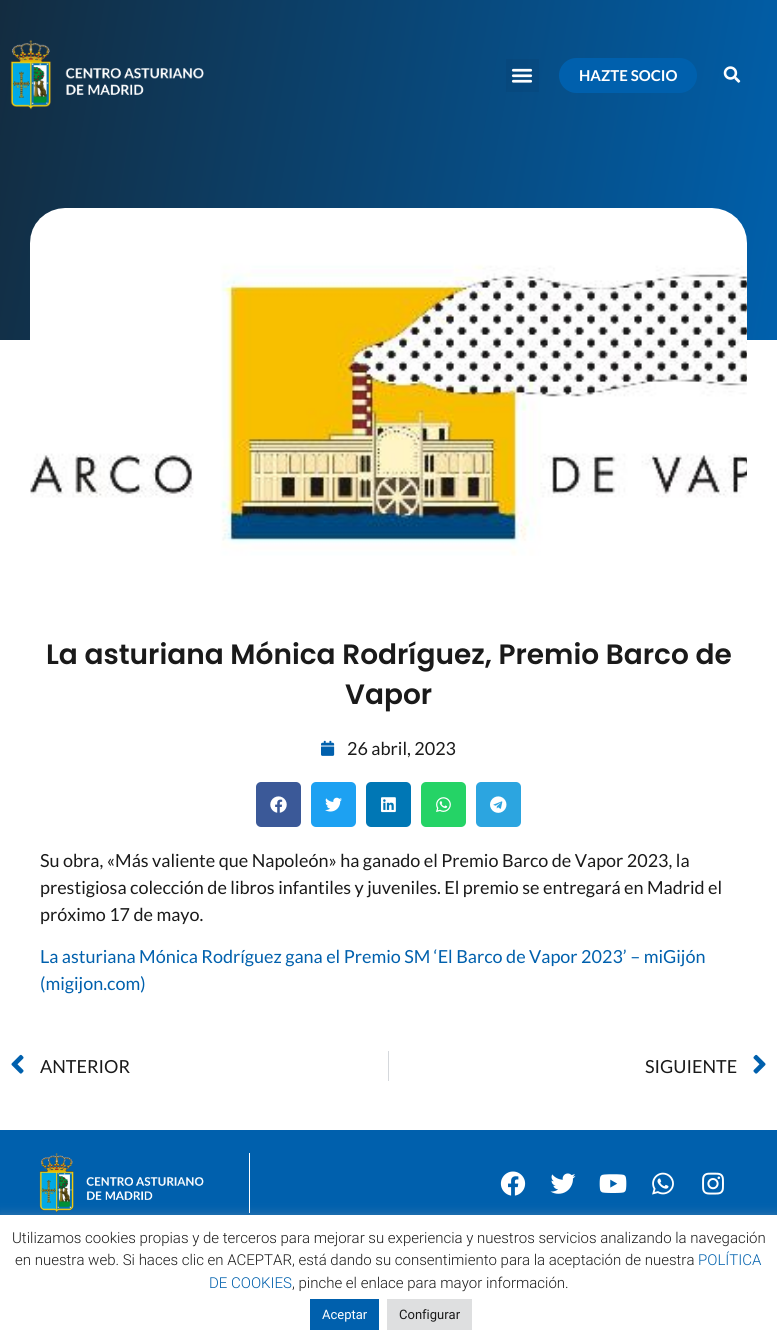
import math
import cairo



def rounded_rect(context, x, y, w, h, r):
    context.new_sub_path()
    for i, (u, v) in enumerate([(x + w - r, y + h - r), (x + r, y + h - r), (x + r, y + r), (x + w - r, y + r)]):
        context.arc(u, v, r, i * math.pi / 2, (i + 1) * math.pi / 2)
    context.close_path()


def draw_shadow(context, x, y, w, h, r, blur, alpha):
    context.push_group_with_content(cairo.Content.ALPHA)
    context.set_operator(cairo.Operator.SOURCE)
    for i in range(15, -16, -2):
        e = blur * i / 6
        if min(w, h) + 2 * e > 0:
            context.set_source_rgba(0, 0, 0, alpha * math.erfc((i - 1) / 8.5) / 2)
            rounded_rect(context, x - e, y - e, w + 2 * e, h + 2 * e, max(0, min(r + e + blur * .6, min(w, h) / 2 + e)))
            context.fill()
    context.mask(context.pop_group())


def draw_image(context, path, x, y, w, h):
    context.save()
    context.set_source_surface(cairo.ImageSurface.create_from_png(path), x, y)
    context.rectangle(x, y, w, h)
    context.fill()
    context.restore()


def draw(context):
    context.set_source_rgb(1, 1, 1)
    context.paint()
    gradient = cairo.LinearGradient(-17, 98, 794, 242)
    gradient.add_color_stop_rgba(0, 19 / 255, 44 / 255, 64 / 255, 1)
    gradient.add_color_stop_rgba(1, 0, 96 / 255, 172 / 255, 1)
    context.set_source(gradient)
    context.rectangle(0, 0, 777, 340)
    context.fill()
    draw_image(context, "images/1.png", 10, 40, 194, 70)
    context.set_source_rgba(0, 0, 0, 0.05)
    context.rectangle(506, 59, 33, 33)
    context.fill()
    draw_image(context, "images/2.png", 511, 68, 22, 15)
    context.set_source_rgb(0, 96 / 255, 173 / 255)
    rounded_rect(context, 559, 58, 138, 35, 17.5)
    context.fill()
    draw_image(context, "images/3.png", 723, 66, 18, 17)
    draw_image(context, "images/4.png", 30, 208, 717, 348)
    draw_image(context, "images/5.png", 321, 740, 14, 16)
    context.set_source_rgb(59 / 255, 89 / 255, 152 / 255)
    rounded_rect(context, 256, 782, 45, 45, 5)
    context.fill()
    draw_image(context, "images/6.png", 270, 796, 17, 17)
    context.set_source_rgb(29 / 255, 161 / 255, 242 / 255)
    rounded_rect(context, 311, 782, 45, 45, 5)
    context.fill()
    draw_image(context, "images/7.png", 325, 797, 17, 15)
    context.set_source_rgb(0, 119 / 255, 181 / 255)
    rounded_rect(context, 366, 782, 45, 45, 5)
    context.fill()
    draw_image(context, "images/8.png", 381, 797, 15, 16)
    context.set_source_rgb(37 / 255, 211 / 255, 102 / 255)
    rounded_rect(context, 421, 782, 45, 45, 5)
    context.fill()
    draw_image(context, "images/9.png", 436, 797, 15, 15)
    context.set_source_rgb(44 / 255, 165 / 255, 224 / 255)
    rounded_rect(context, 476, 782, 45, 45, 5)
    context.fill()
    draw_image(context, "images/10.png", 490, 796, 17, 17)
    draw_image(context, "images/11.png", 11, 1054, 13, 20)
    context.set_source_rgb(213 / 255, 216 / 255, 220 / 255)
    context.rectangle(388, 1051, 1, 30)
    context.fill()
    draw_image(context, "images/12.png", 753, 1054, 13, 20)
    context.set_source_rgb(0, 96 / 255, 173 / 255)
    context.rectangle(0, 1130, 777, 85)
    context.fill()
    draw_image(context, "images/13.png", 39, 1153, 165, 60)
    context.set_source_rgb(1, 1, 1)
    context.rectangle(249, 1153, 1, 60)
    context.fill()
    draw_image(context, "images/14.png", 500, 1171, 26, 25)
    draw_image(context, "images/15.png", 550, 1173, 26, 21)
    draw_image(context, "images/16.png", 599, 1174, 28, 19)
    draw_image(context, "images/17.png", 652, 1172, 22, 23)
    draw_image(context, "images/18.png", 702, 1172, 22, 23)
    context.set_source_rgb(172 / 255, 171 / 255, 171 / 255)
    draw_shadow(context, 0, 1214, 777, 127, 0, 5, 0.3)
    context.set_source_rgb(1, 1, 1)
    context.rectangle(0, 1215, 777, 127)
    context.fill()
    context.set_source_rgb(0, 96 / 255, 173 / 255)
    context.rectangle(310, 1299, 69, 31)
    context.fill()
    context.set_source_rgb(222 / 255, 223 / 255, 224 / 255)
    context.rectangle(387, 1299, 85, 31)
    context.fill()
    context.select_font_face("Lato", cairo.FontSlant.NORMAL, cairo.FontWeight.BOLD)
    context.set_font_size(15)
    context.set_source_rgb(1, 1, 1)
    context.move_to(579, 81)
    context.show_text("HAZTE SOCIO")
    context.select_font_face("Poppins SemiBold")
    context.set_font_size(28)
    context.set_source_rgb(26 / 255, 26 / 255, 26 / 255)
    context.move_to(46, 664)
    context.show_text("La asturiana Mónica Rodríguez, Premio Barco de")
    context.move_to(345, 704)
    context.show_text("Vapor")
    context.select_font_face("Lato")
    context.set_font_size(18)
    context.move_to(347, 755)
    context.show_text("26 abril, 2023")
    context.move_to(40, 867)
    context.show_text("Su obra, «Más valiente que Napoleón» ha ganado el Premio Barco de Vapor 2023, la")
    context.move_to(40, 894)
    context.show_text("prestigiosa colección de libros infantiles y juveniles. El premio se entregará en Madrid el")
    context.move_to(40, 921)
    context.show_text("próximo 17 de mayo.")
    context.set_source_rgb(0, 96 / 255, 173 / 255)
    context.move_to(40, 963)
    context.show_text("La asturiana Mónica Rodríguez gana el Premio SM ‘El Barco de Vapor 2023’ – miGijón")
    context.move_to(40, 990)
    context.show_text("(migijon.com)")
    context.set_source_rgb(26 / 255, 26 / 255, 26 / 255)
    context.move_to(40, 1073)
    context.show_text("ANTERIOR")
    context.move_to(645, 1073)
    context.show_text("SIGUIENTE")
    context.select_font_face("Roboto Light")
    context.set_font_size(15)
    context.move_to(12, 1243)
    context.show_text("Utilizamos cookies propias y de terceros para mejorar su experiencia y nuestros servicios analizando la navegación")
    context.move_to(15, 1265)
    context.show_text("en nuestra web. Si haces clic en ACEPTAR, está dando su consentimiento para la aceptación de nuestra")
    context.set_source_rgb(0, 96 / 255, 173 / 255)
    context.move_to(698, 1265)
    context.show_text("POLÍTICA")
    context.move_to(209, 1288)
    context.show_text("DE COOKIES")
    context.set_source_rgb(26 / 255, 26 / 255, 26 / 255)
    context.move_to(292, 1288)
    context.show_text(", pinche el enlace para mayor información.")
    context.select_font_face("Roboto")
    context.set_font_size(13)
    context.set_source_rgb(1, 1, 1)
    context.move_to(322, 1319)
    context.show_text("Aceptar")
    context.set_source_rgb(26 / 255, 26 / 255, 26 / 255)
    context.move_to(399, 1319)
    context.show_text("Configurar")


surface = cairo.ImageSurface(cairo.Format.RGB24, 777, 1342)
context = cairo.Context(surface)
options = cairo.FontOptions()
options.set_hint_metrics(cairo.HintMetrics.OFF)
options.set_hint_style(cairo.HintStyle.NONE)
context.set_font_options(options)
context.set_miter_limit(4)
draw(context)
surface.write_to_png("out.png")
